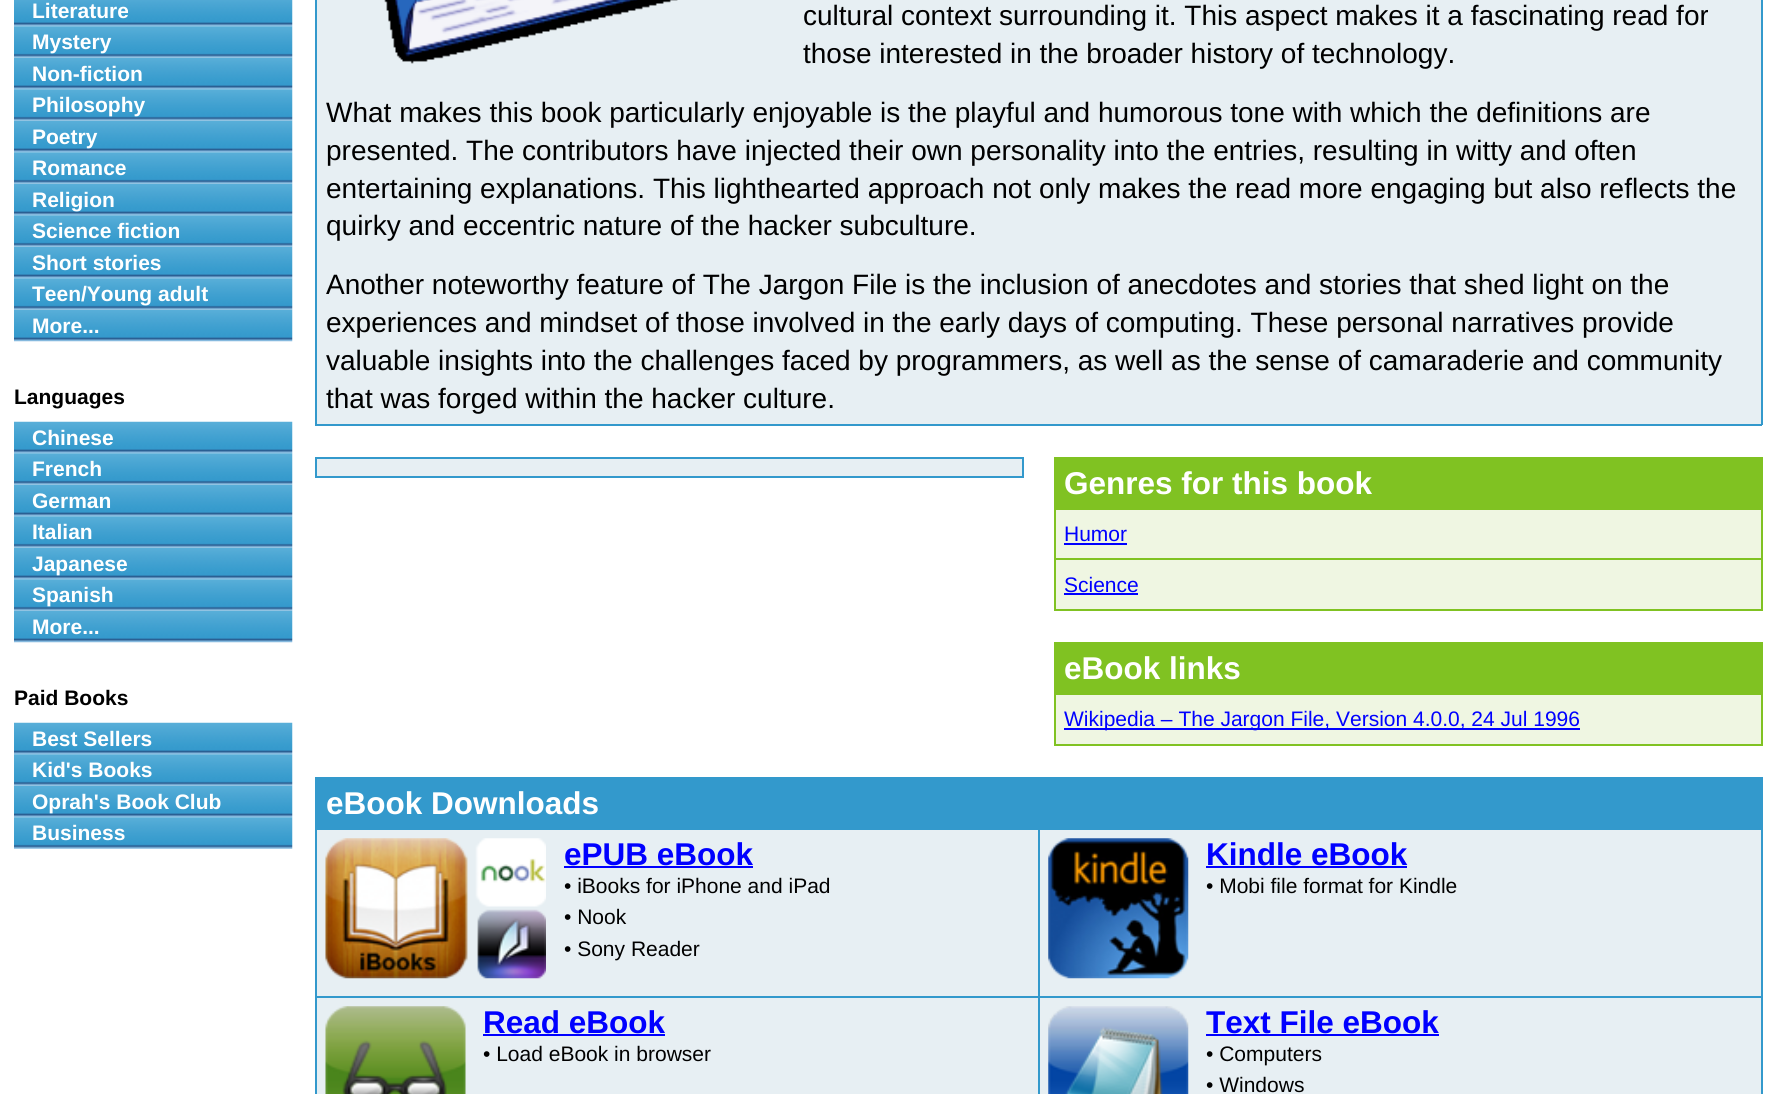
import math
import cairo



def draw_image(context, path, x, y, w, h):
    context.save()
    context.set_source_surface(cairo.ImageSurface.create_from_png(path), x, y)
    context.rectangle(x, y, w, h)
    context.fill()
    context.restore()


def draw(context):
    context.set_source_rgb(1, 1, 1)
    context.paint()
    draw_image(context, "images/1.png", 14, 0, 279, 27)
    draw_image(context, "images/2.png", 14, 26, 279, 32)
    draw_image(context, "images/3.png", 14, 57, 279, 33)
    draw_image(context, "images/2.png", 14, 89, 279, 32)
    draw_image(context, "images/4.png", 14, 120, 279, 33)
    draw_image(context, "images/2.png", 14, 152, 279, 32)
    draw_image(context, "images/5.png", 14, 183, 279, 33)
    draw_image(context, "images/6.png", 14, 215, 279, 32)
    draw_image(context, "images/4.png", 14, 246, 279, 33)
    draw_image(context, "images/2.png", 14, 278, 279, 32)
    draw_image(context, "images/7.png", 14, 309, 279, 33)
    draw_image(context, "images/8.png", 14, 421, 279, 33)
    draw_image(context, "images/2.png", 14, 453, 279, 32)
    draw_image(context, "images/5.png", 14, 484, 279, 33)
    draw_image(context, "images/9.png", 14, 516, 279, 32)
    draw_image(context, "images/7.png", 14, 547, 279, 33)
    draw_image(context, "images/2.png", 14, 579, 279, 32)
    draw_image(context, "images/3.png", 14, 610, 279, 33)
    draw_image(context, "images/10.png", 14, 722, 279, 33)
    draw_image(context, "images/6.png", 14, 754, 279, 32)
    draw_image(context, "images/4.png", 14, 785, 279, 33)
    draw_image(context, "images/2.png", 14, 817, 279, 32)
    context.set_source_rgb(231 / 255, 239 / 255, 243 / 255)
    context.rectangle(317, 0, 1444, 424)
    context.fill()
    context.set_source_rgb(51 / 255, 153 / 255, 204 / 255)
    context.rectangle(1761, 0, 2, 425)
    context.fill()
    context.rectangle(315, 424, 1447, 2)
    context.fill()
    context.rectangle(315, 0, 2, 425)
    context.fill()
    draw_image(context, "images/11.png", 384, 0, 294, 64)
    context.set_source_rgb(231 / 255, 239 / 255, 243 / 255)
    context.rectangle(317, 459, 705, 17)
    context.fill()
    context.set_source_rgb(51 / 255, 153 / 255, 204 / 255)
    context.rectangle(315, 457, 709, 2)
    context.fill()
    context.rectangle(1022, 457, 2, 21)
    context.fill()
    context.rectangle(315, 476, 709, 2)
    context.fill()
    context.rectangle(315, 457, 2, 21)
    context.fill()
    context.set_source_rgb(239 / 255, 246 / 255, 226 / 255)
    context.rectangle(1056, 510, 705, 99)
    context.fill()
    context.set_source_rgb(128 / 255, 194 / 255, 34 / 255)
    context.rectangle(1054, 457, 708, 2)
    context.fill()
    context.rectangle(1761, 457, 2, 154)
    context.fill()
    context.rectangle(1054, 609, 708, 2)
    context.fill()
    context.rectangle(1054, 457, 2, 154)
    context.fill()
    context.rectangle(1056, 459, 705, 49)
    context.fill()
    context.rectangle(1054, 508, 708, 2)
    context.fill()
    context.set_source_rgb(0, 0, 1)
    context.rectangle(1064, 543, 63, 2)
    context.fill()
    context.set_source_rgb(128 / 255, 194 / 255, 34 / 255)
    context.rectangle(1054, 558, 708, 2)
    context.fill()
    context.set_source_rgb(0, 0, 1)
    context.rectangle(1064, 593, 74, 2)
    context.fill()
    context.set_source_rgb(239 / 255, 246 / 255, 226 / 255)
    context.rectangle(1056, 695, 705, 49)
    context.fill()
    context.set_source_rgb(128 / 255, 194 / 255, 34 / 255)
    context.rectangle(1054, 642, 708, 2)
    context.fill()
    context.rectangle(1761, 642, 2, 104)
    context.fill()
    context.rectangle(1054, 744, 708, 2)
    context.fill()
    context.rectangle(1054, 642, 2, 104)
    context.fill()
    context.rectangle(1056, 644, 705, 51)
    context.fill()
    context.set_source_rgb(0, 0, 1)
    context.rectangle(1064, 728, 516, 2)
    context.fill()
    context.set_source_rgb(231 / 255, 239 / 255, 243 / 255)
    context.rectangle(317, 830, 1444, 264)
    context.fill()
    context.set_source_rgb(51 / 255, 153 / 255, 204 / 255)
    context.rectangle(315, 777, 1447, 2)
    context.fill()
    context.rectangle(1761, 777, 2, 317)
    context.fill()
    context.rectangle(315, 777, 2, 317)
    context.fill()
    context.rectangle(317, 779, 1444, 51)
    context.fill()
    draw_image(context, "images/12.png", 325, 838, 221, 141)
    context.set_source_rgb(0, 0, 1)
    context.rectangle(564, 866, 189, 2)
    context.fill()
    context.set_source_rgb(51 / 255, 153 / 255, 204 / 255)
    context.rectangle(1038, 996, 724, 2)
    context.fill()
    context.rectangle(1038, 996, 2, 98)
    context.fill()
    context.rectangle(315, 996, 725, 2)
    context.fill()
    context.rectangle(1038, 828, 2, 170)
    context.fill()
    draw_image(context, "images/13.png", 1048, 838, 141, 141)
    context.set_source_rgb(0, 0, 1)
    context.rectangle(1206, 866, 201, 2)
    context.fill()
    draw_image(context, "images/14.png", 325, 1006, 141, 88)
    context.rectangle(483, 1034, 182, 2)
    context.fill()
    draw_image(context, "images/15.png", 1048, 1006, 141, 88)
    context.rectangle(1206, 1034, 233, 2)
    context.fill()
    context.select_font_face("Liberation Sans", cairo.FontSlant.NORMAL, cairo.FontWeight.BOLD)
    context.set_font_size(21)
    context.set_source_rgb(1, 1, 1)
    context.move_to(32, 18)
    context.show_text("Literature")
    context.move_to(32, 49)
    context.show_text("Mystery")
    context.move_to(32, 81)
    context.show_text("Non-fiction")
    context.move_to(32, 112)
    context.show_text("Philosophy")
    context.move_to(32, 144)
    context.show_text("Poetry")
    context.move_to(32, 175)
    context.show_text("Romance")
    context.move_to(32, 207)
    context.show_text("Religion")
    context.move_to(32, 238)
    context.show_text("Science fiction")
    context.move_to(32, 270)
    context.show_text("Short stories")
    context.move_to(32, 301)
    context.show_text("Teen/Young adult")
    context.move_to(32, 333)
    context.show_text("More...")
    context.set_source_rgb(0, 0, 0)
    context.move_to(14, 404)
    context.show_text("Languages")
    context.set_source_rgb(1, 1, 1)
    context.move_to(32, 445)
    context.show_text("Chinese")
    context.move_to(32, 476)
    context.show_text("French")
    context.move_to(32, 508)
    context.show_text("German")
    context.move_to(32, 539)
    context.show_text("Italian")
    context.move_to(32, 571)
    context.show_text("Japanese")
    context.move_to(32, 602)
    context.show_text("Spanish")
    context.move_to(32, 634)
    context.show_text("More...")
    context.set_source_rgb(0, 0, 0)
    context.move_to(14, 705)
    context.show_text("Paid Books")
    context.set_source_rgb(1, 1, 1)
    context.move_to(32, 746)
    context.show_text("Best Sellers")
    context.move_to(32, 777)
    context.show_text("Kid's Books")
    context.move_to(32, 809)
    context.show_text("Oprah's Book Club")
    context.move_to(32, 840)
    context.show_text("Business")
    context.select_font_face("Liberation Sans")
    context.set_font_size(28)
    context.set_source_rgb(0, 0, 0)
    context.move_to(803, 25)
    context.show_text("cultural context surrounding it. This aspect makes it a fascinating read for")
    context.move_to(803, 63)
    context.show_text("those interested in the broader history of technology.")
    context.move_to(326, 122)
    context.show_text("What makes this book particularly enjoyable is the playful and humorous tone with which the definitions are")
    context.move_to(326, 160)
    context.show_text("presented. The contributors have injected their own personality into the entries, resulting in witty and often")
    context.move_to(326, 198)
    context.show_text("entertaining explanations. This lighthearted approach not only makes the read more engaging but also reflects the")
    context.move_to(326, 235)
    context.show_text("quirky and eccentric nature of the hacker subculture.")
    context.move_to(326, 294)
    context.show_text("Another noteworthy feature of The Jargon File is the inclusion of anecdotes and stories that shed light on the")
    context.move_to(326, 332)
    context.show_text("experiences and mindset of those involved in the early days of computing. These personal narratives provide")
    context.move_to(326, 370)
    context.show_text("valuable insights into the challenges faced by programmers, as well as the sense of camaraderie and community")
    context.move_to(326, 408)
    context.show_text("that was forged within the hacker culture.")
    context.select_font_face("Liberation Sans", cairo.FontSlant.NORMAL, cairo.FontWeight.BOLD)
    context.set_font_size(31.5)
    context.set_source_rgb(1, 1, 1)
    context.move_to(1064, 494)
    context.show_text("Genres for this book")
    context.select_font_face("Liberation Sans")
    context.set_font_size(21)
    context.set_source_rgb(0, 0, 1)
    context.move_to(1064, 541)
    context.show_text("Humor")
    context.move_to(1064, 592)
    context.show_text("Science")
    context.select_font_face("Liberation Sans", cairo.FontSlant.NORMAL, cairo.FontWeight.BOLD)
    context.set_font_size(31.5)
    context.set_source_rgb(1, 1, 1)
    context.move_to(1064, 679)
    context.show_text("eBook links")
    context.select_font_face("Liberation Sans")
    context.set_font_size(21)
    context.set_source_rgb(0, 0, 1)
    context.move_to(1064, 726)
    context.show_text("Wikipedia – The Jargon File, Version 4.0.0, 24 Jul 1996")
    context.select_font_face("Liberation Sans", cairo.FontSlant.NORMAL, cairo.FontWeight.BOLD)
    context.set_font_size(31.5)
    context.set_source_rgb(1, 1, 1)
    context.move_to(326, 814)
    context.show_text("eBook Downloads")
    context.set_source_rgb(0, 0, 1)
    context.move_to(564, 865)
    context.show_text("ePUB eBook")
    context.select_font_face("Liberation Sans")
    context.set_font_size(21)
    context.set_source_rgb(0, 0, 0)
    context.move_to(564, 893)
    context.show_text("• iBooks for iPhone and iPad")
    context.move_to(564, 924)
    context.show_text("• Nook")
    context.move_to(564, 956)
    context.show_text("• Sony Reader")
    context.select_font_face("Liberation Sans", cairo.FontSlant.NORMAL, cairo.FontWeight.BOLD)
    context.set_font_size(31.5)
    context.set_source_rgb(0, 0, 1)
    context.move_to(1206, 865)
    context.show_text("Kindle eBook")
    context.select_font_face("Liberation Sans")
    context.set_font_size(21)
    context.set_source_rgb(0, 0, 0)
    context.move_to(1206, 893)
    context.show_text("• Mobi file format for Kindle")
    context.select_font_face("Liberation Sans", cairo.FontSlant.NORMAL, cairo.FontWeight.BOLD)
    context.set_font_size(31.5)
    context.set_source_rgb(0, 0, 1)
    context.move_to(483, 1033)
    context.show_text("Read eBook")
    context.select_font_face("Liberation Sans")
    context.set_font_size(21)
    context.set_source_rgb(0, 0, 0)
    context.move_to(483, 1061)
    context.show_text("• Load eBook in browser")
    context.select_font_face("Liberation Sans", cairo.FontSlant.NORMAL, cairo.FontWeight.BOLD)
    context.set_font_size(31.5)
    context.set_source_rgb(0, 0, 1)
    context.move_to(1206, 1033)
    context.show_text("Text File eBook")
    context.select_font_face("Liberation Sans")
    context.set_font_size(21)
    context.set_source_rgb(0, 0, 0)
    context.move_to(1206, 1061)
    context.show_text("• Computers")
    context.move_to(1206, 1092)
    context.show_text("• Windows")


surface = cairo.ImageSurface(cairo.Format.RGB24, 1776, 1094)
context = cairo.Context(surface)
options = cairo.FontOptions()
options.set_hint_metrics(cairo.HintMetrics.OFF)
options.set_hint_style(cairo.HintStyle.NONE)
context.set_font_options(options)
context.set_miter_limit(4)
draw(context)
surface.write_to_png("out.png")
